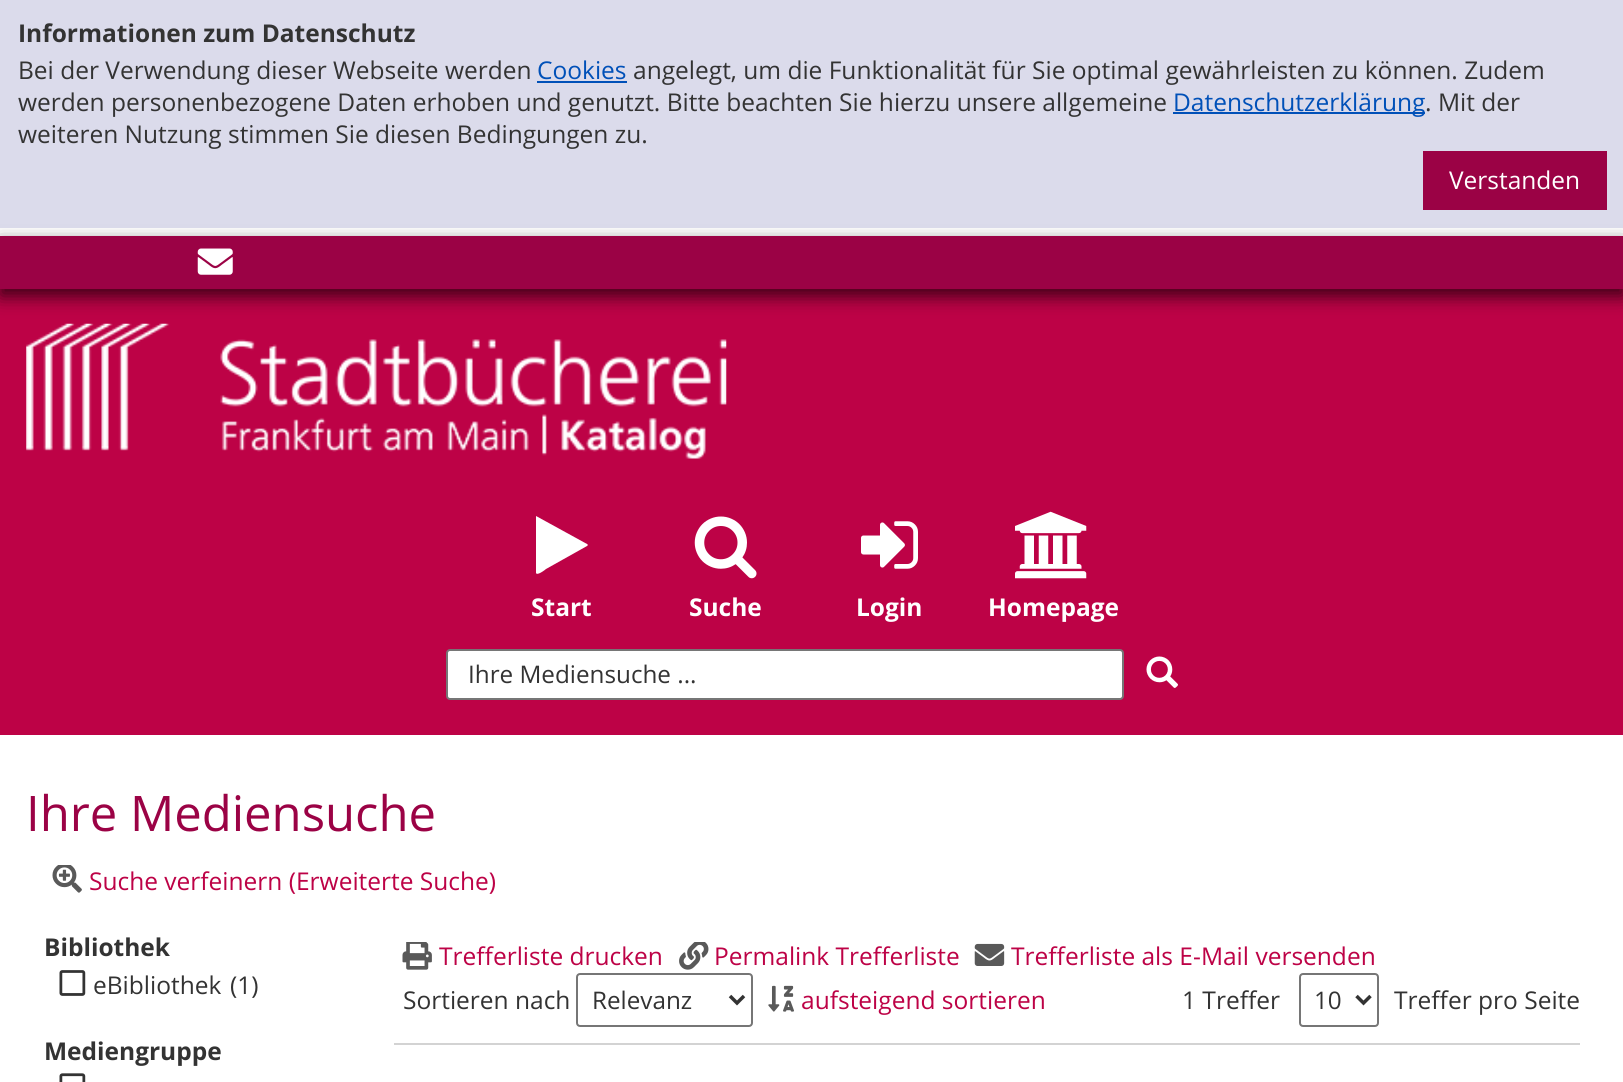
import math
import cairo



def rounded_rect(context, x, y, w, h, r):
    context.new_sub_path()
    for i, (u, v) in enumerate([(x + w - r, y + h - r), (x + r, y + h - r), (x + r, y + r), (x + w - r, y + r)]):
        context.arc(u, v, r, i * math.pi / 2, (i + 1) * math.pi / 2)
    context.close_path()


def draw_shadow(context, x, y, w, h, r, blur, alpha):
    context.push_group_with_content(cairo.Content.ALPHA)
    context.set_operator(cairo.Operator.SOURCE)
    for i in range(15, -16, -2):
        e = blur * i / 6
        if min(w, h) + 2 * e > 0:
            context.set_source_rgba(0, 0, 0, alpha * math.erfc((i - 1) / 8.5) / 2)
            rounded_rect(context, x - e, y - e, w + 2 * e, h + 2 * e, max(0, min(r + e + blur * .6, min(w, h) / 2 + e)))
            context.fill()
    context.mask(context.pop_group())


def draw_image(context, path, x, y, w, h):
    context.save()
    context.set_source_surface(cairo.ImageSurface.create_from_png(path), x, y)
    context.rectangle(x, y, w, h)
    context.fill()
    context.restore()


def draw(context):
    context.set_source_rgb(1, 1, 1)
    context.paint()
    context.set_source_rgb(189 / 255, 2 / 255, 70 / 255)
    context.rectangle(0, 289, 1623, 446)
    context.fill()
    draw_image(context, "images/2.png", 26, 323, 701, 136)
    context.set_source_rgb(0, 0, 0)
    draw_shadow(context, 0, 243, 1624, 53, 0, 9, 0.7)
    context.set_source_rgba(213 / 255, 213 / 255, 231 / 255, 0.85)
    context.rectangle(0, 0, 1623, 228)
    context.fill()
    context.set_source_rgb(0, 80 / 255, 184 / 255)
    context.rectangle(537, 81, 90, 2)
    context.fill()
    context.rectangle(1173, 112, 252, 2)
    context.fill()
    context.set_source_rgb(155 / 255, 2 / 255, 69 / 255)
    context.rectangle(1423, 151, 184, 59)
    context.fill()
    context.rectangle(0, 236, 1623, 53)
    context.fill()
    draw_image(context, "images/1.png", 197, 248, 36, 27)
    context.set_source_rgb(1, 1, 1)
    context.new_path()
    context.move_to(587, 546)
    context.line_to(546, 569)
    context.curve_to(545, 570, 537, 576, 536, 573)
    context.line_to(536, 517)
    context.line_to(536, 516)
    context.line_to(587, 544)
    context.line_to(588, 545)
    context.close_path()
    context.fill()
    draw_image(context, "images/3.png", 694, 516, 63, 63)
    draw_image(context, "images/4.png", 861, 521, 57, 48)
    draw_image(context, "images/5.png", 1015, 511, 72, 68)
    rounded_rect(context, 447, 650, 676, 49, 3)
    context.fill_preserve()
    context.set_source_rgb(118 / 255, 118 / 255, 118 / 255)
    context.stroke()
    draw_image(context, "images/6.png", 1146, 656, 32, 32)
    draw_image(context, "images/7.png", 52, 865, 30, 28)
    draw_image(context, "images/8.png", 59, 970, 27, 26)
    draw_image(context, "images/9.png", 59, 1073, 27, 9)
    draw_image(context, "images/10.png", 402, 942, 30, 28)
    draw_image(context, "images/11.png", 679, 942, 30, 28)
    draw_image(context, "images/12.png", 974, 943, 31, 23)
    rounded_rect(context, 577, 974, 175, 52, 3)
    context.stroke()
    context.new_path()
    context.move_to(730, 996)
    context.line_to(737, 1003)
    context.line_to(744, 996)
    context.set_source_rgb(51 / 255, 51 / 255, 51 / 255)
    context.set_line_width(3.5)
    context.stroke()
    draw_image(context, "images/13.png", 768, 985, 26, 27)
    rounded_rect(context, 1300, 974, 78, 52, 3)
    context.set_source_rgb(118 / 255, 118 / 255, 118 / 255)
    context.set_line_width(2)
    context.stroke()
    context.new_path()
    context.move_to(1356.5, 996)
    context.line_to(1363.5, 1003)
    context.line_to(1370.5, 996)
    context.set_source_rgb(51 / 255, 51 / 255, 51 / 255)
    context.set_line_width(3.5)
    context.stroke()
    context.set_source_rgb(211 / 255, 211 / 255, 211 / 255)
    context.rectangle(394, 1043, 1186, 2)
    context.fill()
    context.select_font_face("Open Sans", cairo.FontSlant.NORMAL, cairo.FontWeight.BOLD)
    context.set_font_size(24.5)
    context.set_source_rgb(51 / 255, 51 / 255, 51 / 255)
    context.move_to(18, 42)
    context.show_text("Informationen zum Datenschutz")
    context.select_font_face("Open Sans")
    context.move_to(18, 79)
    context.show_text("Bei der Verwendung dieser Webseite werden")
    context.set_source_rgb(0, 80 / 255, 184 / 255)
    context.move_to(537, 79)
    context.show_text("Cookies")
    context.set_source_rgb(51 / 255, 51 / 255, 51 / 255)
    context.move_to(633, 79)
    context.show_text("angelegt, um die Funktionalität für Sie optimal gewährleisten zu können. Zudem")
    context.move_to(18, 111)
    context.show_text("werden personenbezogene Daten erhoben und genutzt. Bitte beachten Sie hierzu unsere allgemeine")
    context.set_source_rgb(0, 80 / 255, 184 / 255)
    context.move_to(1173, 111)
    context.show_text("Datenschutzerklärung")
    context.set_source_rgb(51 / 255, 51 / 255, 51 / 255)
    context.move_to(1425, 111)
    context.show_text(". Mit der")
    context.move_to(18, 143)
    context.show_text("weiteren Nutzung stimmen Sie diesen Bedingungen zu.")
    context.set_source_rgb(1, 1, 1)
    context.move_to(1449, 189)
    context.show_text("Verstanden")
    context.select_font_face("Open Sans", cairo.FontSlant.NORMAL, cairo.FontWeight.BOLD)
    context.move_to(531, 616)
    context.show_text("Start")
    context.move_to(689, 616)
    context.show_text("Suche")
    context.move_to(856, 616)
    context.show_text("Login")
    context.move_to(988, 616)
    context.show_text("Homepage")
    context.select_font_face("Open Sans")
    context.set_font_size(24.25)
    context.set_source_rgb(51 / 255, 51 / 255, 51 / 255)
    context.move_to(468, 683)
    context.show_text("Ihre Mediensuche ...")
    context.set_font_size(49)
    context.set_source_rgb(155 / 255, 2 / 255, 69 / 255)
    context.move_to(26, 831)
    context.show_text("Ihre Mediensuche")
    context.set_font_size(24.5)
    context.set_source_rgb(189 / 255, 2 / 255, 70 / 255)
    context.move_to(89, 890)
    context.show_text("Suche verfeinern (Erweiterte Suche)")
    context.select_font_face("Open Sans", cairo.FontSlant.NORMAL, cairo.FontWeight.BOLD)
    context.set_source_rgb(51 / 255, 51 / 255, 51 / 255)
    context.move_to(44, 956)
    context.show_text("Bibliothek")
    context.select_font_face("Open Sans")
    context.move_to(93, 994)
    context.show_text("eBibliothek")
    context.move_to(230, 994)
    context.show_text("(1)")
    context.select_font_face("Open Sans", cairo.FontSlant.NORMAL, cairo.FontWeight.BOLD)
    context.move_to(44, 1060)
    context.show_text("Mediengruppe")
    context.select_font_face("Open Sans")
    context.set_source_rgb(189 / 255, 2 / 255, 70 / 255)
    context.move_to(439, 965)
    context.show_text("Trefferliste drucken")
    context.move_to(714, 965)
    context.show_text("Permalink Trefferliste")
    context.move_to(1011, 965)
    context.show_text("Trefferliste als E-Mail versenden")
    context.set_source_rgb(51 / 255, 51 / 255, 51 / 255)
    context.move_to(403, 1009)
    context.show_text("Sortieren nach")
    context.set_font_size(24.25)
    context.move_to(592, 1009)
    context.show_text("Relevanz")
    context.set_font_size(24.5)
    context.set_source_rgb(189 / 255, 2 / 255, 70 / 255)
    context.move_to(801, 1009)
    context.show_text("aufsteigend sortieren")
    context.set_source_rgb(51 / 255, 51 / 255, 51 / 255)
    context.move_to(1182, 1009)
    context.show_text("1 Treffer")
    context.set_font_size(24.25)
    context.move_to(1314, 1009)
    context.show_text("10")
    context.set_font_size(24.5)
    context.move_to(1394, 1009)
    context.show_text("Treffer pro Seite")


surface = cairo.ImageSurface(cairo.Format.RGB24, 1623, 1082)
context = cairo.Context(surface)
options = cairo.FontOptions()
options.set_hint_metrics(cairo.HintMetrics.OFF)
options.set_hint_style(cairo.HintStyle.NONE)
context.set_font_options(options)
context.set_miter_limit(4)
draw(context)
surface.write_to_png("out.png")
